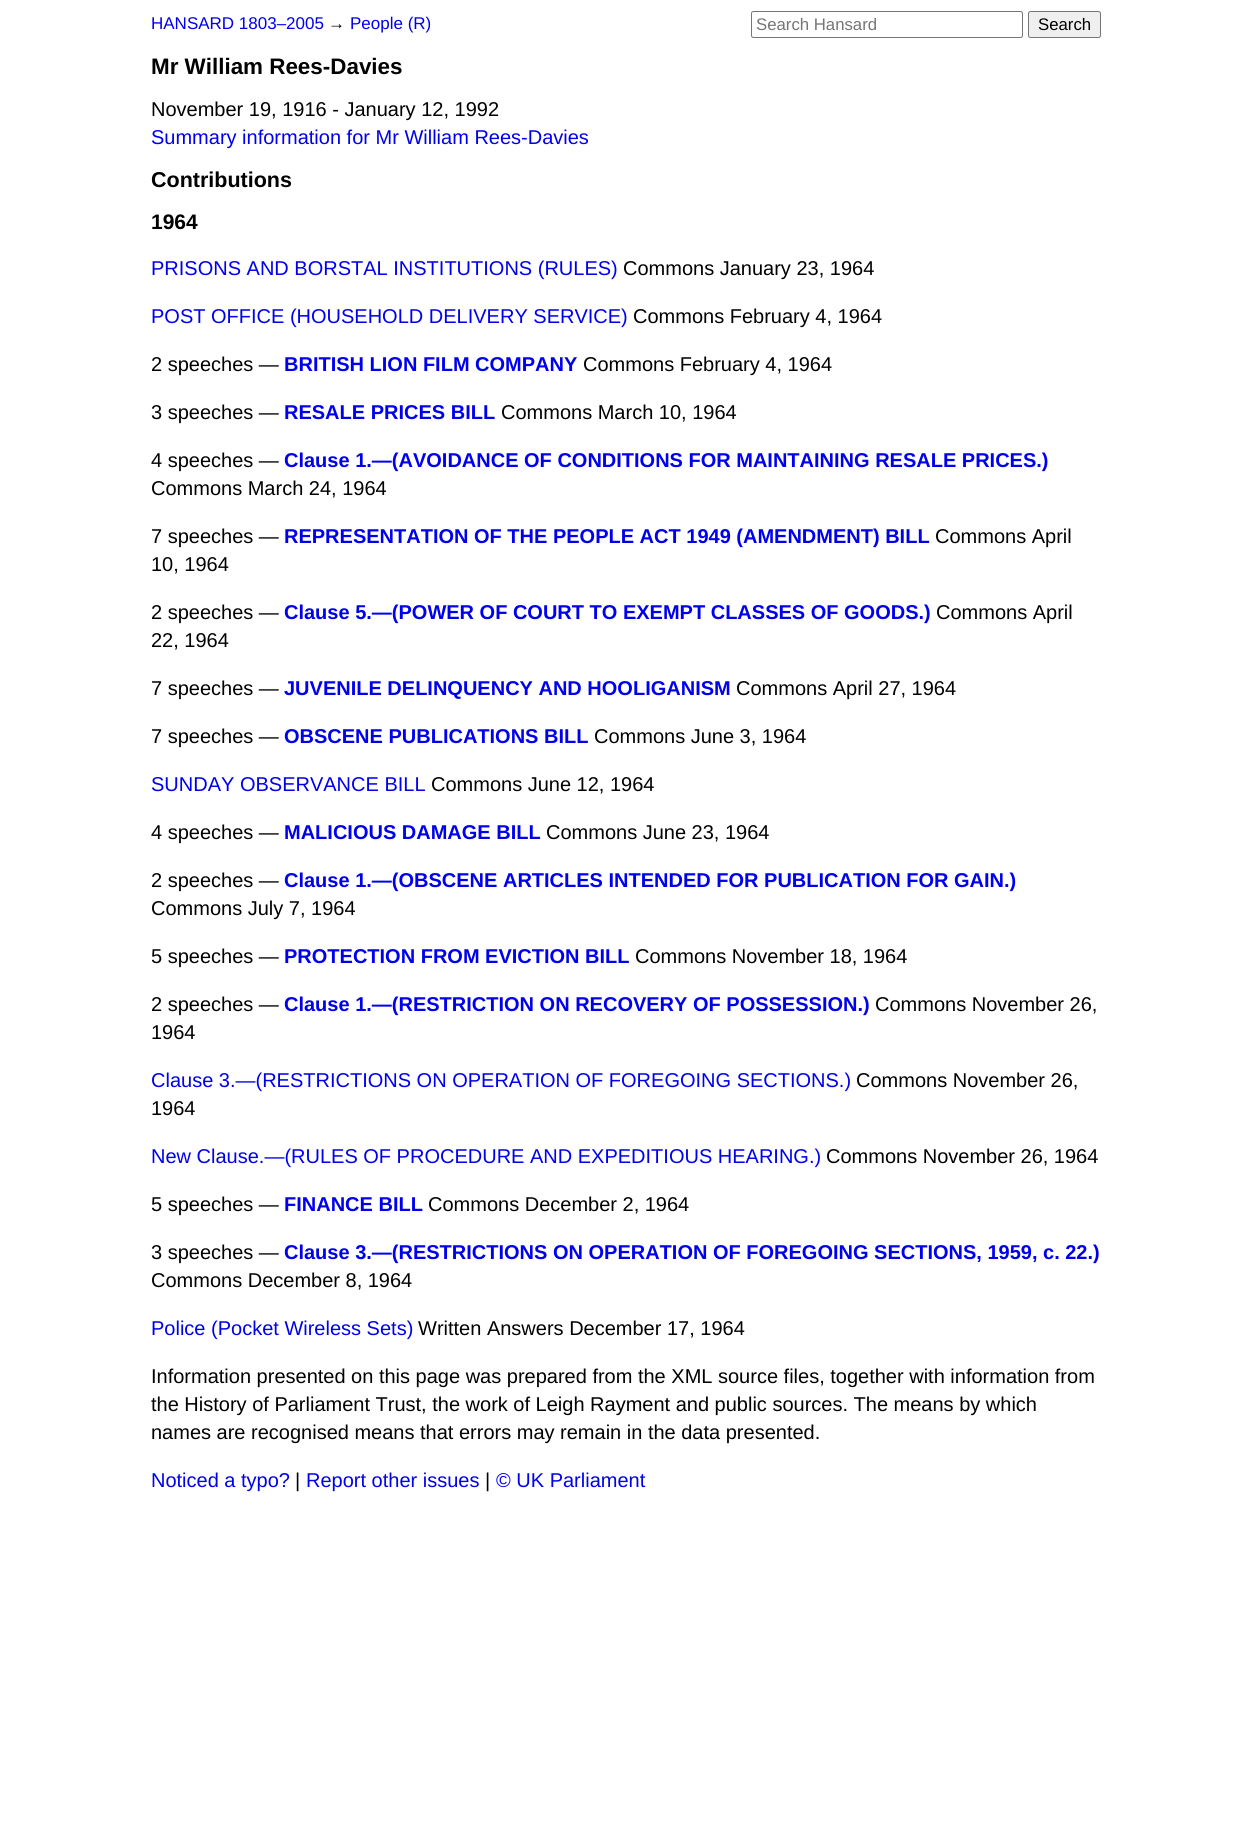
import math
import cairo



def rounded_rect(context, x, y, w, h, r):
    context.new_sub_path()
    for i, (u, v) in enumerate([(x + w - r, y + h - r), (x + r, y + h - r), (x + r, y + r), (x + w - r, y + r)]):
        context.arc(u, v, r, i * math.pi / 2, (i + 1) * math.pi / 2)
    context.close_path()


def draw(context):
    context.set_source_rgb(1, 1, 1)
    context.paint()
    rounded_rect(context, 751.5, 11.5, 271, 26, 2)
    context.set_source_rgb(118 / 255, 118 / 255, 118 / 255)
    context.set_line_width(1)
    context.stroke()
    context.set_source_rgb(239 / 255, 239 / 255, 239 / 255)
    rounded_rect(context, 1028.5, 11.5, 72, 26, 2)
    context.fill_preserve()
    context.set_source_rgb(118 / 255, 118 / 255, 118 / 255)
    context.stroke()
    context.select_font_face("Liberation Sans")
    context.set_font_size(17)
    context.set_source_rgb(0, 0, 238 / 255)
    context.move_to(151, 29)
    context.show_text("HANSARD 1803–2005")
    context.set_source_rgb(0, 0, 0)
    context.move_to(328, 29)
    context.show_text("→")
    context.set_source_rgb(0, 0, 238 / 255)
    context.move_to(350, 29)
    context.show_text("People (R)")
    context.set_font_size(16.75)
    context.set_source_rgb(117 / 255, 117 / 255, 117 / 255)
    context.move_to(756, 30)
    context.show_text("Search Hansard")
    context.set_source_rgb(0, 0, 0)
    context.move_to(1038, 30)
    context.show_text("Search")
    context.select_font_face("Liberation Sans", cairo.FontSlant.NORMAL, cairo.FontWeight.BOLD)
    context.set_font_size(22.4)
    context.move_to(151, 74)
    context.show_text("Mr William Rees-Davies")
    context.select_font_face("Liberation Sans")
    context.set_font_size(20)
    context.move_to(151, 116)
    context.show_text("November 19, 1916 - January 12, 1992")
    context.set_source_rgb(0, 0, 238 / 255)
    context.move_to(151, 144)
    context.show_text("Summary information for Mr William Rees-Davies")
    context.select_font_face("Liberation Sans", cairo.FontSlant.NORMAL, cairo.FontWeight.BOLD)
    context.set_font_size(21.5)
    context.set_source_rgb(0, 0, 0)
    context.move_to(151, 187)
    context.show_text("Contributions")
    context.set_font_size(21)
    context.move_to(151, 229)
    context.show_text("1964")
    context.select_font_face("Liberation Sans")
    context.set_font_size(20)
    context.set_source_rgb(0, 0, 238 / 255)
    context.move_to(151, 275)
    context.show_text("PRISONS AND BORSTAL INSTITUTIONS (RULES)")
    context.set_source_rgb(0, 0, 0)
    context.move_to(623, 275)
    context.show_text("Commons January 23, 1964")
    context.set_source_rgb(0, 0, 238 / 255)
    context.move_to(151, 323)
    context.show_text("POST OFFICE (HOUSEHOLD DELIVERY SERVICE)")
    context.set_source_rgb(0, 0, 0)
    context.move_to(633, 323)
    context.show_text("Commons February 4, 1964")
    context.move_to(151, 371)
    context.show_text("2 speeches —")
    context.select_font_face("Liberation Sans", cairo.FontSlant.NORMAL, cairo.FontWeight.BOLD)
    context.set_source_rgb(0, 0, 238 / 255)
    context.move_to(284, 371)
    context.show_text("BRITISH LION FILM COMPANY")
    context.select_font_face("Liberation Sans")
    context.set_source_rgb(0, 0, 0)
    context.move_to(583, 371)
    context.show_text("Commons February 4, 1964")
    context.move_to(151, 419)
    context.show_text("3 speeches —")
    context.select_font_face("Liberation Sans", cairo.FontSlant.NORMAL, cairo.FontWeight.BOLD)
    context.set_source_rgb(0, 0, 238 / 255)
    context.move_to(284, 419)
    context.show_text("RESALE PRICES BILL")
    context.select_font_face("Liberation Sans")
    context.set_source_rgb(0, 0, 0)
    context.move_to(501, 419)
    context.show_text("Commons March 10, 1964")
    context.move_to(151, 467)
    context.show_text("4 speeches —")
    context.select_font_face("Liberation Sans", cairo.FontSlant.NORMAL, cairo.FontWeight.BOLD)
    context.set_source_rgb(0, 0, 238 / 255)
    context.move_to(284, 467)
    context.show_text("Clause 1.—(AVOIDANCE OF CONDITIONS FOR MAINTAINING RESALE PRICES.)")
    context.select_font_face("Liberation Sans")
    context.set_source_rgb(0, 0, 0)
    context.move_to(151, 495)
    context.show_text("Commons March 24, 1964")
    context.move_to(151, 543)
    context.show_text("7 speeches —")
    context.select_font_face("Liberation Sans", cairo.FontSlant.NORMAL, cairo.FontWeight.BOLD)
    context.set_source_rgb(0, 0, 238 / 255)
    context.move_to(284, 543)
    context.show_text("REPRESENTATION OF THE PEOPLE ACT 1949 (AMENDMENT) BILL")
    context.select_font_face("Liberation Sans")
    context.set_source_rgb(0, 0, 0)
    context.move_to(935, 543)
    context.show_text("Commons April")
    context.move_to(151, 571)
    context.show_text("10, 1964")
    context.move_to(151, 619)
    context.show_text("2 speeches —")
    context.select_font_face("Liberation Sans", cairo.FontSlant.NORMAL, cairo.FontWeight.BOLD)
    context.set_source_rgb(0, 0, 238 / 255)
    context.move_to(284, 619)
    context.show_text("Clause 5.—(POWER OF COURT TO EXEMPT CLASSES OF GOODS.)")
    context.select_font_face("Liberation Sans")
    context.set_source_rgb(0, 0, 0)
    context.move_to(936, 619)
    context.show_text("Commons April")
    context.move_to(151, 647)
    context.show_text("22, 1964")
    context.move_to(151, 695)
    context.show_text("7 speeches —")
    context.select_font_face("Liberation Sans", cairo.FontSlant.NORMAL, cairo.FontWeight.BOLD)
    context.set_source_rgb(0, 0, 238 / 255)
    context.move_to(284, 695)
    context.show_text("JUVENILE DELINQUENCY AND HOOLIGANISM")
    context.select_font_face("Liberation Sans")
    context.set_source_rgb(0, 0, 0)
    context.move_to(736, 695)
    context.show_text("Commons April 27, 1964")
    context.move_to(151, 743)
    context.show_text("7 speeches —")
    context.select_font_face("Liberation Sans", cairo.FontSlant.NORMAL, cairo.FontWeight.BOLD)
    context.set_source_rgb(0, 0, 238 / 255)
    context.move_to(284, 743)
    context.show_text("OBSCENE PUBLICATIONS BILL")
    context.select_font_face("Liberation Sans")
    context.set_source_rgb(0, 0, 0)
    context.move_to(594, 743)
    context.show_text("Commons June 3, 1964")
    context.set_source_rgb(0, 0, 238 / 255)
    context.move_to(151, 791)
    context.show_text("SUNDAY OBSERVANCE BILL")
    context.set_source_rgb(0, 0, 0)
    context.move_to(431, 791)
    context.show_text("Commons June 12, 1964")
    context.move_to(151, 839)
    context.show_text("4 speeches —")
    context.select_font_face("Liberation Sans", cairo.FontSlant.NORMAL, cairo.FontWeight.BOLD)
    context.set_source_rgb(0, 0, 238 / 255)
    context.move_to(284, 839)
    context.show_text("MALICIOUS DAMAGE BILL")
    context.select_font_face("Liberation Sans")
    context.set_source_rgb(0, 0, 0)
    context.move_to(546, 839)
    context.show_text("Commons June 23, 1964")
    context.move_to(151, 887)
    context.show_text("2 speeches —")
    context.select_font_face("Liberation Sans", cairo.FontSlant.NORMAL, cairo.FontWeight.BOLD)
    context.set_source_rgb(0, 0, 238 / 255)
    context.move_to(284, 887)
    context.show_text("Clause 1.—(OBSCENE ARTICLES INTENDED FOR PUBLICATION FOR GAIN.)")
    context.select_font_face("Liberation Sans")
    context.set_source_rgb(0, 0, 0)
    context.move_to(151, 915)
    context.show_text("Commons July 7, 1964")
    context.move_to(151, 963)
    context.show_text("5 speeches —")
    context.select_font_face("Liberation Sans", cairo.FontSlant.NORMAL, cairo.FontWeight.BOLD)
    context.set_source_rgb(0, 0, 238 / 255)
    context.move_to(284, 963)
    context.show_text("PROTECTION FROM EVICTION BILL")
    context.select_font_face("Liberation Sans")
    context.set_source_rgb(0, 0, 0)
    context.move_to(635, 963)
    context.show_text("Commons November 18, 1964")
    context.move_to(151, 1011)
    context.show_text("2 speeches —")
    context.select_font_face("Liberation Sans", cairo.FontSlant.NORMAL, cairo.FontWeight.BOLD)
    context.set_source_rgb(0, 0, 238 / 255)
    context.move_to(284, 1011)
    context.show_text("Clause 1.—(RESTRICTION ON RECOVERY OF POSSESSION.)")
    context.select_font_face("Liberation Sans")
    context.set_source_rgb(0, 0, 0)
    context.move_to(875, 1011)
    context.show_text("Commons November 26,")
    context.move_to(151, 1039)
    context.show_text("1964")
    context.set_source_rgb(0, 0, 238 / 255)
    context.move_to(151, 1087)
    context.show_text("Clause 3.—(RESTRICTIONS ON OPERATION OF FOREGOING SECTIONS.)")
    context.set_source_rgb(0, 0, 0)
    context.move_to(856, 1087)
    context.show_text("Commons November 26,")
    context.move_to(151, 1115)
    context.show_text("1964")
    context.set_source_rgb(0, 0, 238 / 255)
    context.move_to(151, 1163)
    context.show_text("New Clause.—(RULES OF PROCEDURE AND EXPEDITIOUS HEARING.)")
    context.set_source_rgb(0, 0, 0)
    context.move_to(826, 1163)
    context.show_text("Commons November 26, 1964")
    context.move_to(151, 1211)
    context.show_text("5 speeches —")
    context.select_font_face("Liberation Sans", cairo.FontSlant.NORMAL, cairo.FontWeight.BOLD)
    context.set_source_rgb(0, 0, 238 / 255)
    context.move_to(284, 1211)
    context.show_text("FINANCE BILL")
    context.select_font_face("Liberation Sans")
    context.set_source_rgb(0, 0, 0)
    context.move_to(428, 1211)
    context.show_text("Commons December 2, 1964")
    context.move_to(151, 1259)
    context.show_text("3 speeches —")
    context.select_font_face("Liberation Sans", cairo.FontSlant.NORMAL, cairo.FontWeight.BOLD)
    context.set_source_rgb(0, 0, 238 / 255)
    context.move_to(284, 1259)
    context.show_text("Clause 3.—(RESTRICTIONS ON OPERATION OF FOREGOING SECTIONS, 1959, c. 22.)")
    context.select_font_face("Liberation Sans")
    context.set_source_rgb(0, 0, 0)
    context.move_to(151, 1287)
    context.show_text("Commons December 8, 1964")
    context.set_source_rgb(0, 0, 238 / 255)
    context.move_to(151, 1335)
    context.show_text("Police (Pocket Wireless Sets)")
    context.set_source_rgb(0, 0, 0)
    context.move_to(418, 1335)
    context.show_text("Written Answers December 17, 1964")
    context.move_to(151, 1383)
    context.show_text("Information presented on this page was prepared from the XML source files, together with information from")
    context.move_to(151, 1411)
    context.show_text("the History of Parliament Trust, the work of Leigh Rayment and public sources. The means by which")
    context.move_to(151, 1439)
    context.show_text("names are recognised means that errors may remain in the data presented.")
    context.set_source_rgb(0, 0, 238 / 255)
    context.move_to(151, 1487)
    context.show_text("Noticed a typo?")
    context.set_source_rgb(0, 0, 0)
    context.move_to(295, 1487)
    context.show_text("|")
    context.set_source_rgb(0, 0, 238 / 255)
    context.move_to(306, 1487)
    context.show_text("Report other issues")
    context.set_source_rgb(0, 0, 0)
    context.move_to(485, 1487)
    context.show_text("|")
    context.set_source_rgb(0, 0, 238 / 255)
    context.move_to(496, 1487)
    context.show_text("© UK Parliament")


surface = cairo.ImageSurface(cairo.Format.RGB24, 1251, 1846)
context = cairo.Context(surface)
options = cairo.FontOptions()
options.set_hint_metrics(cairo.HintMetrics.OFF)
options.set_hint_style(cairo.HintStyle.NONE)
context.set_font_options(options)
context.set_miter_limit(4)
draw(context)
surface.write_to_png("out.png")
